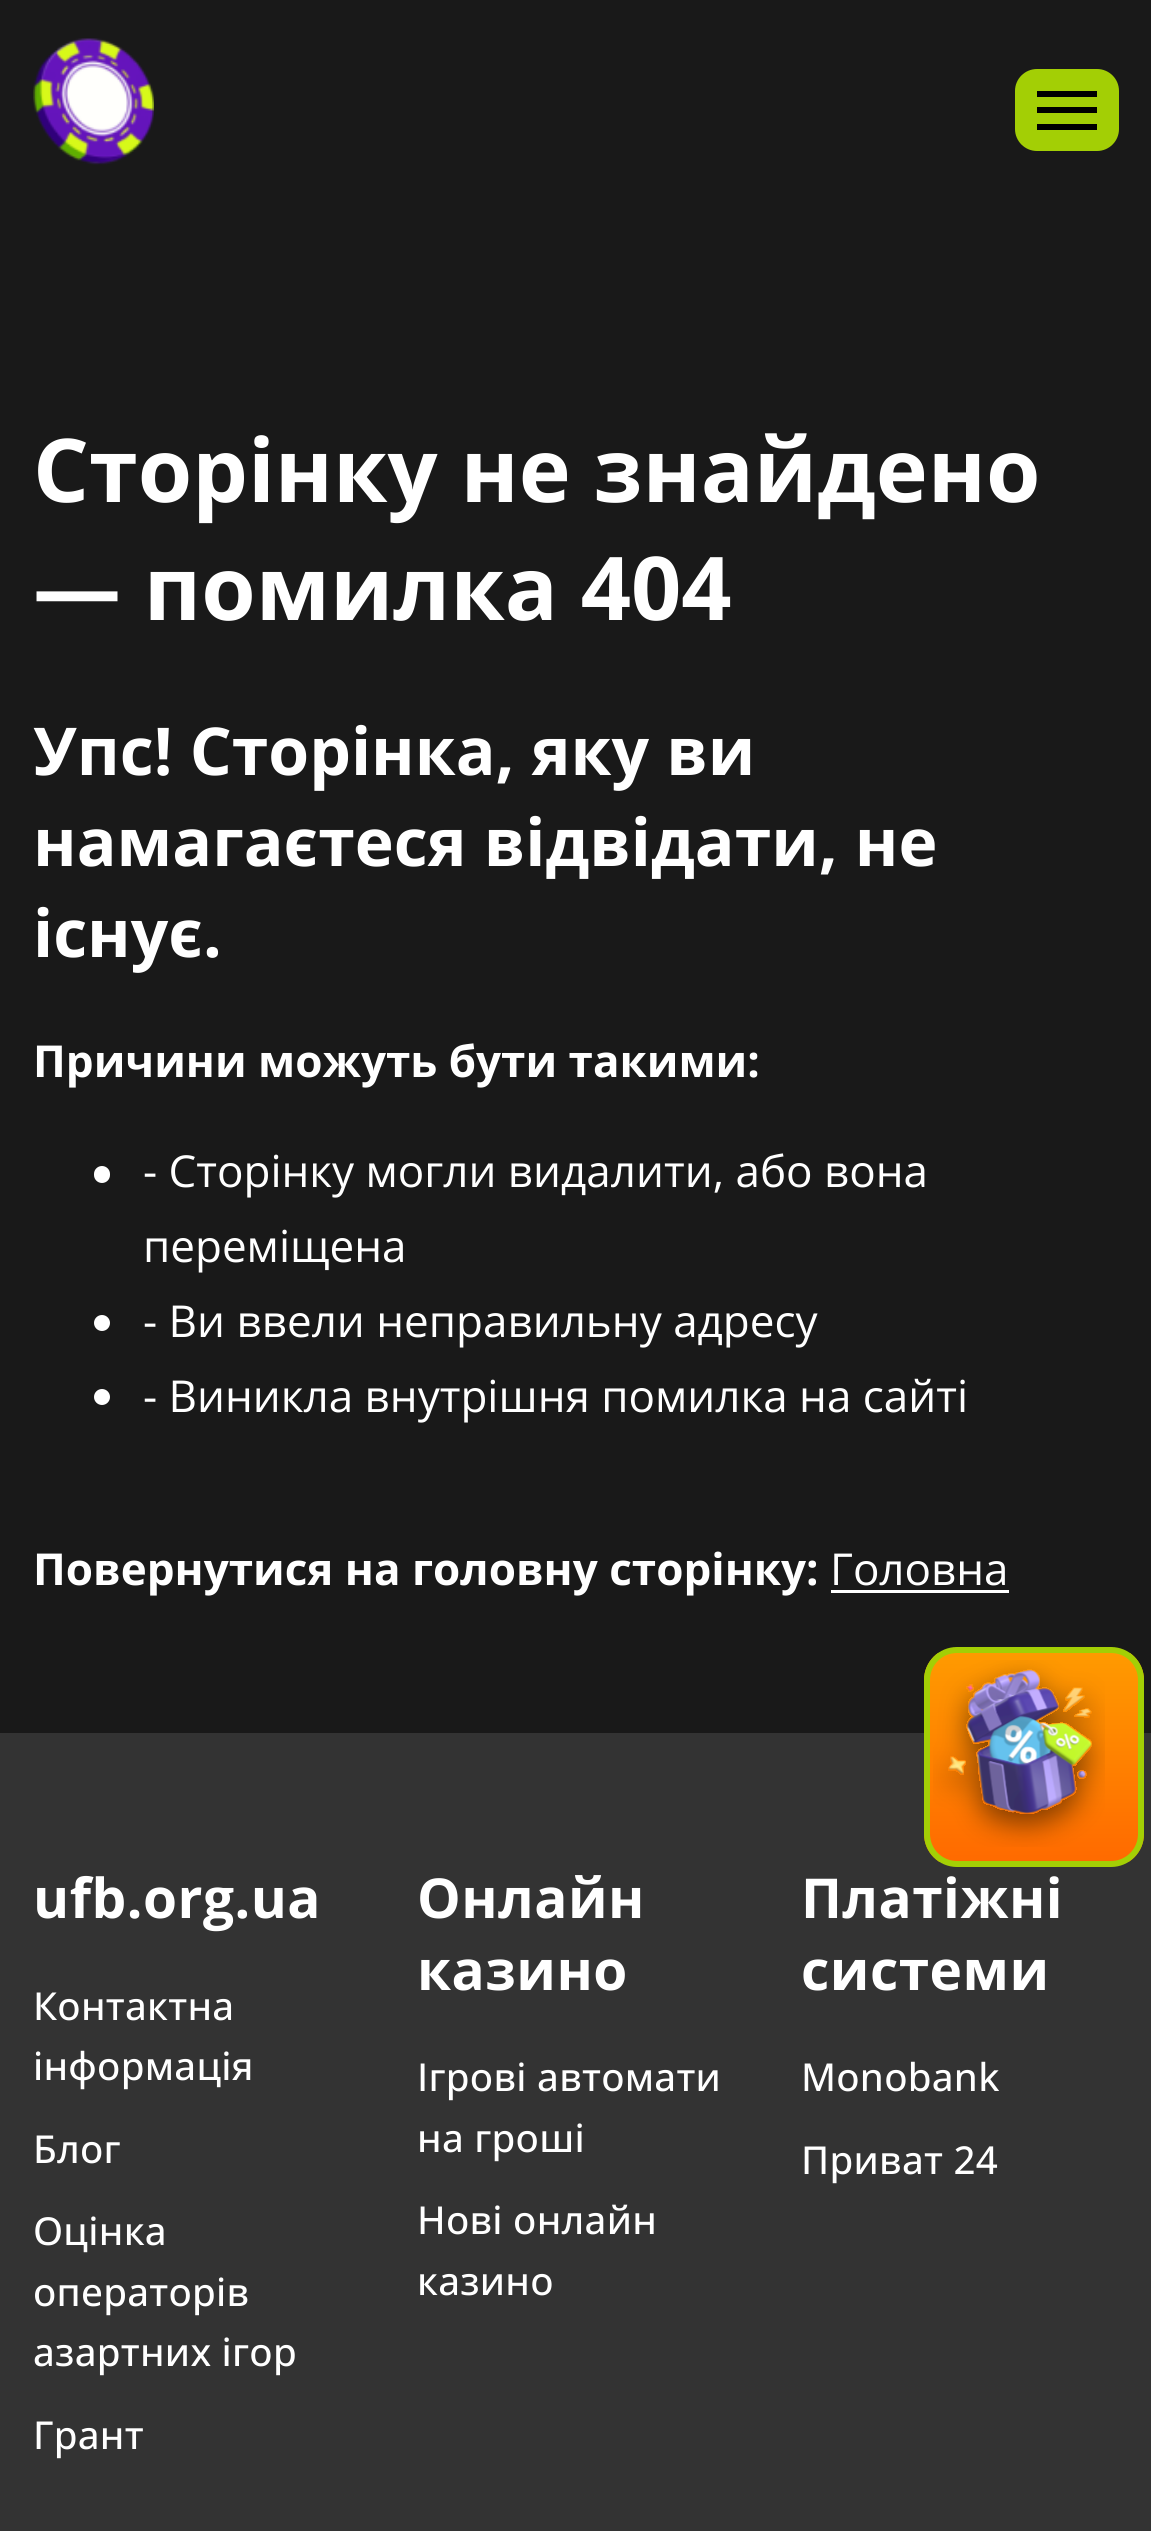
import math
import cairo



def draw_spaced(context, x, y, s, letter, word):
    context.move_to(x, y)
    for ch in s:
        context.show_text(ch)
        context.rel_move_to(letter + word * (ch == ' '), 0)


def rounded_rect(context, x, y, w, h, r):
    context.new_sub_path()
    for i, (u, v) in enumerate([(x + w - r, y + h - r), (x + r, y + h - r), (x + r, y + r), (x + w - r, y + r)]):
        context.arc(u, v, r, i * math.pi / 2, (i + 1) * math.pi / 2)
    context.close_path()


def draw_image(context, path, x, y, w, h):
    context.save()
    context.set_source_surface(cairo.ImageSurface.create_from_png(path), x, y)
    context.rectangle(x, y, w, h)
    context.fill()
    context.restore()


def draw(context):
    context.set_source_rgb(25 / 255, 25 / 255, 25 / 255)
    context.paint()
    draw_image(context, "images/1.png", 33, 38, 121, 127)
    context.set_source_rgb(163 / 255, 207 / 255, 5 / 255)
    rounded_rect(context, 1015, 69, 104, 82, 22)
    context.fill()
    context.set_source_rgb(0, 0, 0)
    context.rectangle(1037, 91, 60, 6)
    context.fill()
    context.rectangle(1037, 107, 60, 6)
    context.fill()
    context.rectangle(1037, 124, 60, 6)
    context.fill()
    context.set_source_rgb(1, 1, 1)
    rounded_rect(context, 94, 1166, 16, 17, 8)
    context.fill()
    context.arc(102, 1323, 8, 0, 2 * math.pi)
    context.fill()
    context.arc(102, 1397, 8, 0, 2 * math.pi)
    context.fill()
    context.rectangle(831, 1590, 178, 3)
    context.fill()
    context.set_source_rgb(51 / 255, 51 / 255, 51 / 255)
    context.rectangle(0, 1733, 1151, 798)
    context.fill()
    context.save()
    rounded_rect(context, 924, 1647, 220, 220, 33)
    context.clip()
    gradient = cairo.LinearGradient(1034, 1653, 1034, 1862)
    gradient.add_color_stop_rgba(0, 1, 154 / 255, 0, 1)
    gradient.add_color_stop_rgba(1, 1, 106 / 255, 0, 1)
    context.set_source(gradient)
    context.rectangle(924, 1653, 220, 209)
    context.fill()
    context.restore()
    rounded_rect(context, 927, 1650, 214, 214, 30)
    context.set_source_rgb(163 / 255, 207 / 255, 5 / 255)
    context.set_line_width(6)
    context.stroke()
    draw_image(context, "images/2.png", 933, 1660, 172, 187)
    context.select_font_face("Open Sans", cairo.FontSlant.NORMAL, cairo.FontWeight.BOLD)
    context.set_font_size(88)
    context.set_source_rgb(1, 1, 1)
    context.move_to(33, 502)
    context.show_text("Сторінку не знайдено")
    context.move_to(33, 620)
    context.show_text("— помилка 404")
    context.set_font_size(66)
    context.move_to(33, 775)
    context.show_text("Упс! Сторінка, яку ви")
    context.move_to(33, 866)
    context.show_text("намагаєтеся відвідати, не")
    context.move_to(33, 957)
    context.show_text("існує.")
    context.set_font_size(44)
    context.move_to(33, 1077)
    context.show_text("Причини можуть бути такими:")
    context.select_font_face("Open Sans")
    context.move_to(143, 1187)
    context.show_text("- Сторінку могли видалити, або вона")
    context.move_to(143, 1262)
    context.show_text("переміщена")
    context.move_to(143, 1337)
    context.show_text("- Ви ввели неправильну адресу")
    context.move_to(143, 1412)
    context.show_text("- Виникла внутрішня помилка на сайті")
    context.select_font_face("Open Sans", cairo.FontSlant.NORMAL, cairo.FontWeight.BOLD)
    context.move_to(33, 1585)
    context.show_text("Повернутися на головну сторінку:")
    context.select_font_face("Open Sans")
    context.move_to(830, 1585)
    context.show_text("Головна")
    context.select_font_face("Open Sans", cairo.FontSlant.NORMAL, cairo.FontWeight.BOLD)
    context.set_font_size(55)
    draw_spaced(context, 33, 1918, "ufb.org.ua", 0.5, 0)
    context.select_font_face("Open Sans Medium")
    context.set_font_size(38.5)
    draw_spaced(context, 33, 2020, "Контактна", 0.25, 0)
    draw_spaced(context, 33, 2080, "інформація", 0.25, 0)
    draw_spaced(context, 33, 2163, "Блог", 0.25, 0)
    draw_spaced(context, 33, 2245, "Оцінка", 0.25, 0)
    draw_spaced(context, 33, 2306, "операторів", 0.25, 0)
    draw_spaced(context, 33, 2366, "азартних ігор", 0.25, 0)
    draw_spaced(context, 33, 2449, "Грант", 0.25, 0)
    context.select_font_face("Open Sans", cairo.FontSlant.NORMAL, cairo.FontWeight.BOLD)
    context.set_font_size(55)
    draw_spaced(context, 417, 1918, "Онлайн", 0.5, 0)
    draw_spaced(context, 417, 1990, "казино", 0.5, 0)
    context.select_font_face("Open Sans Medium")
    context.set_font_size(38.5)
    draw_spaced(context, 417, 2091, "Ігрові автомати", 0.25, 0)
    draw_spaced(context, 417, 2152, "на гроші", 0.25, 0)
    draw_spaced(context, 417, 2234, "Нові онлайн", 0.25, 0)
    draw_spaced(context, 417, 2295, "казино", 0.25, 0)
    context.select_font_face("Open Sans", cairo.FontSlant.NORMAL, cairo.FontWeight.BOLD)
    context.set_font_size(55)
    draw_spaced(context, 801, 1918, "Платіжні", 0.5, 0)
    draw_spaced(context, 801, 1990, "системи", 0.5, 0)
    context.select_font_face("Open Sans Medium")
    context.set_font_size(38.5)
    draw_spaced(context, 801, 2091, "Monobank", 0.25, 0)
    draw_spaced(context, 801, 2174, "Приват 24", 0.25, 0)


surface = cairo.ImageSurface(cairo.Format.RGB24, 1151, 2531)
context = cairo.Context(surface)
options = cairo.FontOptions()
options.set_hint_metrics(cairo.HintMetrics.OFF)
options.set_hint_style(cairo.HintStyle.NONE)
context.set_font_options(options)
context.set_miter_limit(4)
draw(context)
surface.write_to_png("out.png")
